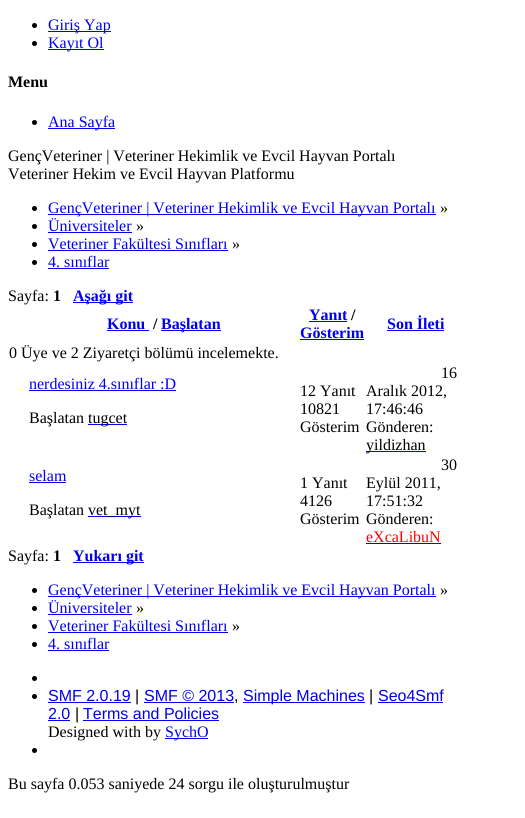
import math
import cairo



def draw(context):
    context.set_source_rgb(1, 1, 1)
    context.paint()
    context.set_source_rgb(0, 0, 0)
    context.arc(34.5, 25.5, 2.5, 0, 2 * math.pi)
    context.fill()
    context.set_source_rgb(0, 0, 238 / 255)
    context.rectangle(48, 31, 63, 1)
    context.fill()
    context.set_source_rgb(0, 0, 0)
    context.arc(34.5, 43.5, 2.5, 0, 2 * math.pi)
    context.fill()
    context.set_source_rgb(0, 0, 238 / 255)
    context.rectangle(48, 49, 56, 1)
    context.fill()
    context.set_source_rgb(0, 0, 0)
    context.arc(34.5, 122.5, 2.5, 0, 2 * math.pi)
    context.fill()
    context.set_source_rgb(0, 0, 238 / 255)
    context.rectangle(48, 128, 67, 1)
    context.fill()
    context.set_source_rgb(0, 0, 0)
    context.arc(34.5, 208.5, 2.5, 0, 2 * math.pi)
    context.fill()
    context.set_source_rgb(0, 0, 238 / 255)
    context.rectangle(48, 214, 388, 1)
    context.fill()
    context.set_source_rgb(0, 0, 0)
    context.arc(34.5, 226.5, 2.5, 0, 2 * math.pi)
    context.fill()
    context.set_source_rgb(0, 0, 238 / 255)
    context.rectangle(48, 232, 84, 1)
    context.fill()
    context.set_source_rgb(0, 0, 0)
    context.arc(34.5, 244.5, 2.5, 0, 2 * math.pi)
    context.fill()
    context.set_source_rgb(0, 0, 238 / 255)
    context.rectangle(48, 250, 180, 1)
    context.fill()
    context.set_source_rgb(0, 0, 0)
    context.arc(34.5, 262.5, 2.5, 0, 2 * math.pi)
    context.fill()
    context.set_source_rgb(0, 0, 238 / 255)
    context.rectangle(48, 268, 61, 1)
    context.fill()
    context.rectangle(73, 302, 60, 1)
    context.fill()
    context.rectangle(107, 330, 42, 1)
    context.fill()
    context.rectangle(161, 330, 60, 1)
    context.fill()
    context.rectangle(309, 321, 38, 1)
    context.fill()
    context.rectangle(300, 339, 64, 1)
    context.fill()
    context.rectangle(387, 330, 57, 1)
    context.fill()
    context.rectangle(29, 390, 147, 1)
    context.fill()
    context.rectangle(88, 424, 39, 1)
    context.fill()
    context.rectangle(366, 451, 60, 1)
    context.fill()
    context.rectangle(29, 482, 37, 1)
    context.fill()
    context.rectangle(88, 516, 53, 1)
    context.fill()
    context.rectangle(366, 543, 75, 1)
    context.fill()
    context.rectangle(73, 562, 71, 1)
    context.fill()
    context.set_source_rgb(0, 0, 0)
    context.arc(34.5, 590.5, 2.5, 0, 2 * math.pi)
    context.fill()
    context.set_source_rgb(0, 0, 238 / 255)
    context.rectangle(48, 596, 388, 1)
    context.fill()
    context.set_source_rgb(0, 0, 0)
    context.arc(34.5, 608.5, 2.5, 0, 2 * math.pi)
    context.fill()
    context.set_source_rgb(0, 0, 238 / 255)
    context.rectangle(48, 614, 84, 1)
    context.fill()
    context.set_source_rgb(0, 0, 0)
    context.arc(34.5, 626.5, 2.5, 0, 2 * math.pi)
    context.fill()
    context.set_source_rgb(0, 0, 238 / 255)
    context.rectangle(48, 632, 180, 1)
    context.fill()
    context.set_source_rgb(0, 0, 0)
    context.arc(34.5, 644.5, 2.5, 0, 2 * math.pi)
    context.fill()
    context.set_source_rgb(0, 0, 238 / 255)
    context.rectangle(48, 650, 61, 1)
    context.fill()
    context.set_source_rgb(0, 0, 0)
    context.arc(34.5, 678.5, 2.5, 0, 2 * math.pi)
    context.fill()
    context.arc(34.5, 696.5, 2.5, 0, 2 * math.pi)
    context.fill()
    context.set_source_rgb(0, 0, 238 / 255)
    context.rectangle(48, 702, 83, 1)
    context.fill()
    context.rectangle(378, 702, 65, 1)
    context.fill()
    context.rectangle(144, 702, 90, 1)
    context.fill()
    context.rectangle(243, 702, 122, 1)
    context.fill()
    context.rectangle(48, 720, 22, 1)
    context.fill()
    context.rectangle(83, 720, 136, 1)
    context.fill()
    context.rectangle(165, 738, 43, 1)
    context.fill()
    context.set_source_rgb(0, 0, 0)
    context.arc(34.5, 750.5, 2.5, 0, 2 * math.pi)
    context.fill()
    context.select_font_face("Liberation Serif")
    context.set_font_size(16)
    context.set_source_rgb(0, 0, 238 / 255)
    context.move_to(48, 30)
    context.show_text("Giriş Yap")
    context.move_to(48, 48)
    context.show_text("Kayıt Ol")
    context.select_font_face("Liberation Serif", cairo.FontSlant.NORMAL, cairo.FontWeight.BOLD)
    context.set_source_rgb(0, 0, 0)
    context.move_to(8, 87)
    context.show_text("Menu")
    context.select_font_face("Liberation Serif")
    context.set_source_rgb(0, 0, 238 / 255)
    context.move_to(48, 127)
    context.show_text("Ana Sayfa")
    context.set_source_rgb(0, 0, 0)
    context.move_to(8, 161)
    context.show_text("GençVeteriner | Veteriner Hekimlik ve Evcil Hayvan Portalı")
    context.move_to(8, 179)
    context.show_text("Veteriner Hekim ve Evcil Hayvan Platformu")
    context.set_source_rgb(0, 0, 238 / 255)
    context.move_to(48, 213)
    context.show_text("GençVeteriner | Veteriner Hekimlik ve Evcil Hayvan Portalı")
    context.set_source_rgb(0, 0, 0)
    context.move_to(440, 213)
    context.show_text("»")
    context.set_source_rgb(0, 0, 238 / 255)
    context.move_to(48, 231)
    context.show_text("Üniversiteler")
    context.set_source_rgb(0, 0, 0)
    context.move_to(136, 231)
    context.show_text("»")
    context.set_source_rgb(0, 0, 238 / 255)
    context.move_to(48, 249)
    context.show_text("Veteriner Fakültesi Sınıfları")
    context.set_source_rgb(0, 0, 0)
    context.move_to(232, 249)
    context.show_text("»")
    context.set_source_rgb(0, 0, 238 / 255)
    context.move_to(48, 267)
    context.show_text("4. sınıflar")
    context.set_source_rgb(0, 0, 0)
    context.move_to(8, 301)
    context.show_text("Sayfa:")
    context.select_font_face("Liberation Serif", cairo.FontSlant.NORMAL, cairo.FontWeight.BOLD)
    context.move_to(53, 301)
    context.show_text("1")
    context.set_source_rgb(0, 0, 238 / 255)
    context.move_to(73, 301)
    context.show_text("Aşağı git")
    context.move_to(107, 329)
    context.show_text("Konu")
    context.set_source_rgb(0, 0, 0)
    context.move_to(153, 329)
    context.show_text("/")
    context.set_source_rgb(0, 0, 238 / 255)
    context.move_to(161, 329)
    context.show_text("Başlatan")
    context.move_to(309, 320)
    context.show_text("Yanıt")
    context.set_source_rgb(0, 0, 0)
    context.move_to(351, 320)
    context.show_text("/")
    context.set_source_rgb(0, 0, 238 / 255)
    context.move_to(300, 338)
    context.show_text("Gösterim")
    context.move_to(387, 329)
    context.show_text("Son İleti")
    context.select_font_face("Liberation Serif")
    context.set_source_rgb(0, 0, 0)
    context.move_to(9, 358)
    context.show_text("0 Üye ve 2 Ziyaretçi bölümü incelemekte.")
    context.set_source_rgb(0, 0, 238 / 255)
    context.move_to(29, 389)
    context.show_text("nerdesiniz 4.sınıflar :D")
    context.set_source_rgb(0, 0, 0)
    context.move_to(29, 423)
    context.show_text("Başlatan")
    context.move_to(88, 423)
    context.show_text("tugcet")
    context.move_to(300, 396)
    context.show_text("12 Yanıt")
    context.move_to(300, 414)
    context.show_text("10821")
    context.move_to(300, 432)
    context.show_text("Gösterim")
    context.move_to(441, 378)
    context.show_text("16")
    context.move_to(366, 396)
    context.show_text("Aralık 2012,")
    context.move_to(366, 414)
    context.show_text("17:46:46")
    context.move_to(366, 432)
    context.show_text("Gönderen:")
    context.move_to(366, 450)
    context.show_text("yildizhan")
    context.set_source_rgb(0, 0, 238 / 255)
    context.move_to(29, 481)
    context.show_text("selam")
    context.set_source_rgb(0, 0, 0)
    context.move_to(29, 515)
    context.show_text("Başlatan")
    context.move_to(88, 515)
    context.show_text("vet_myt")
    context.move_to(300, 488)
    context.show_text("1 Yanıt")
    context.move_to(300, 506)
    context.show_text("4126")
    context.move_to(300, 524)
    context.show_text("Gösterim")
    context.move_to(441, 470)
    context.show_text("30")
    context.move_to(366, 488)
    context.show_text("Eylül 2011,")
    context.move_to(366, 506)
    context.show_text("17:51:32")
    context.move_to(366, 524)
    context.show_text("Gönderen:")
    context.set_source_rgb(1, 0, 0)
    context.move_to(366, 542)
    context.show_text("eXcaLibuN")
    context.set_source_rgb(0, 0, 0)
    context.move_to(8, 561)
    context.show_text("Sayfa:")
    context.select_font_face("Liberation Serif", cairo.FontSlant.NORMAL, cairo.FontWeight.BOLD)
    context.move_to(53, 561)
    context.show_text("1")
    context.set_source_rgb(0, 0, 238 / 255)
    context.move_to(73, 561)
    context.show_text("Yukarı git")
    context.select_font_face("Liberation Serif")
    context.move_to(48, 595)
    context.show_text("GençVeteriner | Veteriner Hekimlik ve Evcil Hayvan Portalı")
    context.set_source_rgb(0, 0, 0)
    context.move_to(440, 595)
    context.show_text("»")
    context.set_source_rgb(0, 0, 238 / 255)
    context.move_to(48, 613)
    context.show_text("Üniversiteler")
    context.set_source_rgb(0, 0, 0)
    context.move_to(136, 613)
    context.show_text("»")
    context.set_source_rgb(0, 0, 238 / 255)
    context.move_to(48, 631)
    context.show_text("Veteriner Fakültesi Sınıfları")
    context.set_source_rgb(0, 0, 0)
    context.move_to(232, 631)
    context.show_text("»")
    context.set_source_rgb(0, 0, 238 / 255)
    context.move_to(48, 649)
    context.show_text("4. sınıflar")
    context.select_font_face("Liberation Sans")
    context.move_to(48, 701)
    context.show_text("SMF 2.0.19")
    context.set_source_rgb(0, 0, 0)
    context.move_to(135, 701)
    context.show_text("|")
    context.set_source_rgb(0, 0, 238 / 255)
    context.move_to(144, 701)
    context.show_text("SMF © 2013")
    context.move_to(243, 701)
    context.show_text("Simple Machines")
    context.set_source_rgb(0, 0, 0)
    context.move_to(369, 701)
    context.show_text("|")
    context.set_source_rgb(0, 0, 238 / 255)
    context.move_to(378, 701)
    context.show_text("Seo4Smf")
    context.set_source_rgb(0, 0, 0)
    context.move_to(234, 701)
    context.show_text(",")
    context.set_source_rgb(0, 0, 238 / 255)
    context.move_to(48, 719)
    context.show_text("2.0")
    context.set_source_rgb(0, 0, 0)
    context.move_to(75, 719)
    context.show_text("|")
    context.set_source_rgb(0, 0, 238 / 255)
    context.move_to(83, 719)
    context.show_text("Terms and Policies")
    context.select_font_face("Liberation Serif")
    context.set_source_rgb(0, 0, 0)
    context.move_to(48, 737)
    context.show_text("Designed with by")
    context.set_source_rgb(0, 0, 238 / 255)
    context.move_to(165, 737)
    context.show_text("SychO")
    context.set_source_rgb(0, 0, 0)
    context.move_to(8, 789)
    context.show_text("Bu sayfa 0.053 saniyede 24 sorgu ile oluşturulmuştur")


surface = cairo.ImageSurface(cairo.Format.RGB24, 525, 818)
context = cairo.Context(surface)
options = cairo.FontOptions()
options.set_hint_metrics(cairo.HintMetrics.OFF)
options.set_hint_style(cairo.HintStyle.NONE)
context.set_font_options(options)
context.set_miter_limit(4)
draw(context)
surface.write_to_png("out.png")
